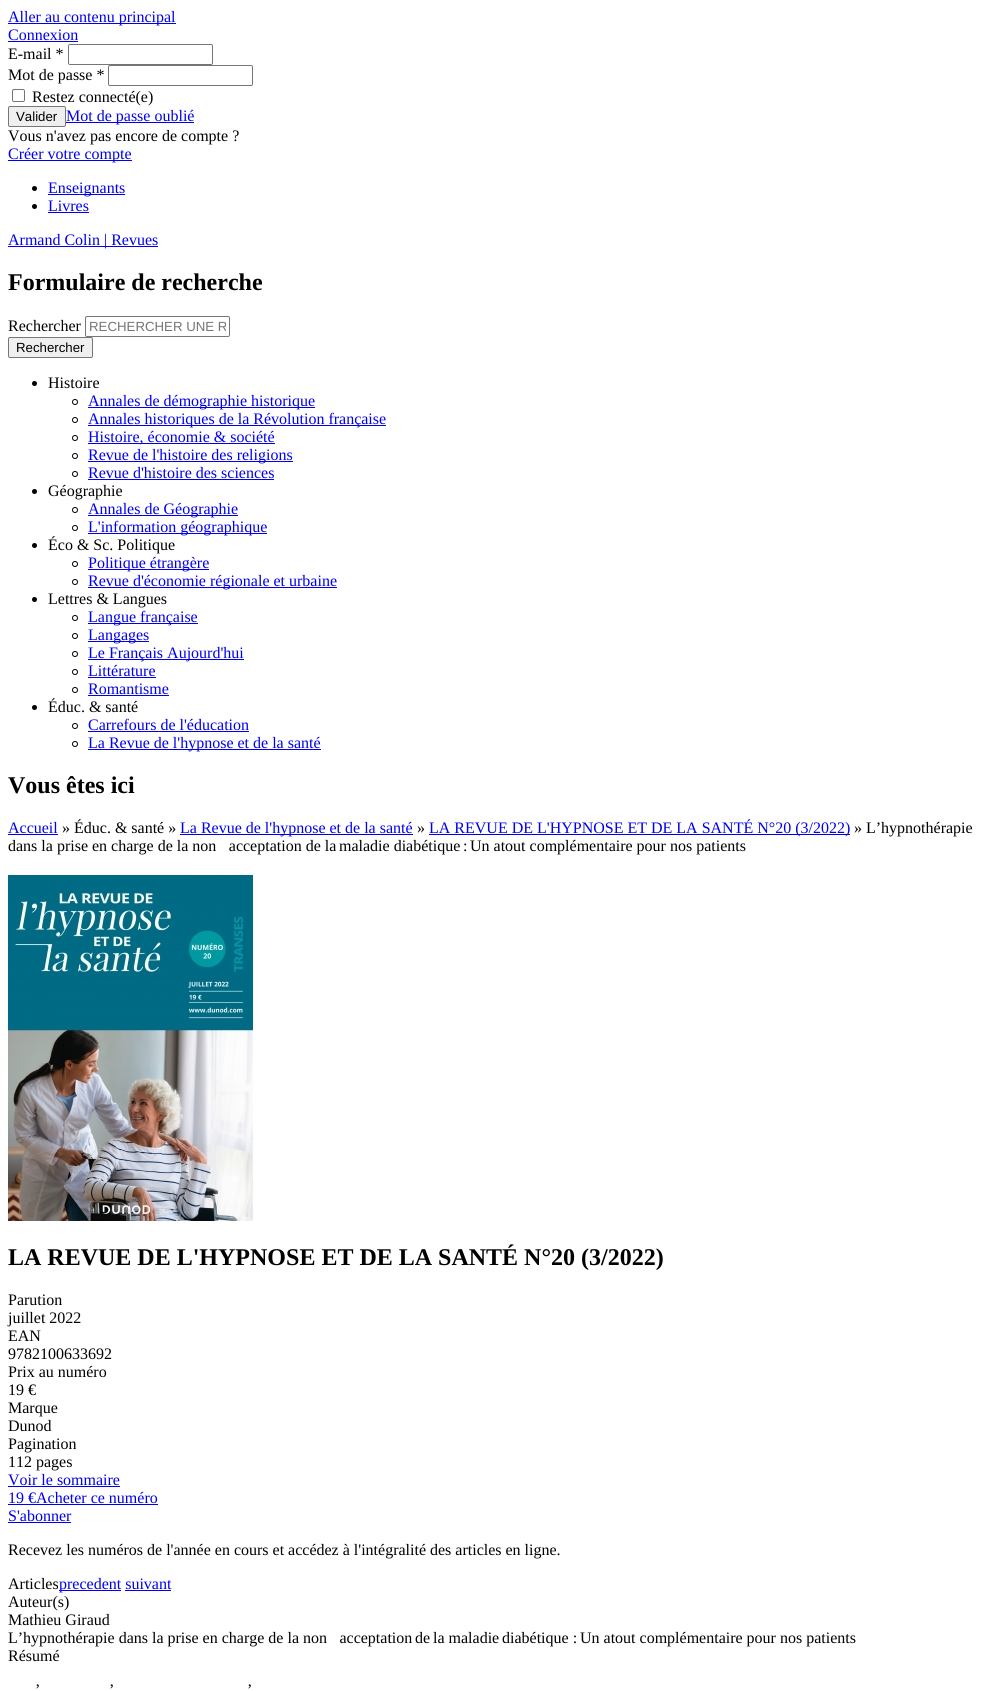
import math
import cairo



def rounded_rect(context, x, y, w, h, r):
    context.new_sub_path()
    for i, (u, v) in enumerate([(x + w - r, y + h - r), (x + r, y + h - r), (x + r, y + r), (x + w - r, y + r)]):
        context.arc(u, v, r, i * math.pi / 2, (i + 1) * math.pi / 2)
    context.close_path()


def draw_image(context, path, x, y, w, h):
    context.save()
    context.set_source_surface(cairo.ImageSurface.create_from_png(path), x, y)
    context.rectangle(x, y, w, h)
    context.fill()
    context.restore()


def draw(context):
    context.set_source_rgb(1, 1, 1)
    context.paint()
    context.set_source_rgb(0, 0, 238 / 255)
    context.rectangle(8, 23, 168, 1)
    context.fill()
    context.rectangle(8, 41, 70, 1)
    context.fill()
    rounded_rect(context, 68.5, 44.5, 144, 20, 1.5)
    context.set_source_rgb(118 / 255, 118 / 255, 118 / 255)
    context.set_line_width(1)
    context.stroke()
    rounded_rect(context, 108.5, 65.5, 144, 20, 1.5)
    context.stroke()
    rounded_rect(context, 12.5, 89.5, 12, 12, 1.5)
    context.stroke()
    context.set_source_rgb(0, 0, 238 / 255)
    context.rectangle(66, 122, 128, 1)
    context.fill()
    context.rectangle(8, 160, 124, 1)
    context.fill()
    context.set_source_rgb(0, 0, 0)
    context.arc(34.5, 188.5, 2.5, 0, 2 * math.pi)
    context.fill()
    context.set_source_rgb(0, 0, 238 / 255)
    context.rectangle(48, 194, 77, 1)
    context.fill()
    context.set_source_rgb(0, 0, 0)
    context.arc(34.5, 206.5, 2.5, 0, 2 * math.pi)
    context.fill()
    context.set_source_rgb(0, 0, 238 / 255)
    context.rectangle(48, 212, 41, 1)
    context.fill()
    context.rectangle(8, 246, 150, 1)
    context.fill()
    rounded_rect(context, 85.5, 316.5, 144, 20, 1.5)
    context.set_source_rgb(118 / 255, 118 / 255, 118 / 255)
    context.stroke()
    context.set_source_rgb(239 / 255, 239 / 255, 239 / 255)
    rounded_rect(context, 8.5, 337.5, 84, 20, 1.5)
    context.fill_preserve()
    context.set_source_rgb(118 / 255, 118 / 255, 118 / 255)
    context.stroke()
    context.set_source_rgb(0, 0, 0)
    context.arc(34.5, 383.5, 2.5, 0, 2 * math.pi)
    context.fill()
    context.arc(75, 402, 2.5, 0, 2 * math.pi)
    context.stroke()
    context.set_source_rgb(0, 0, 238 / 255)
    context.rectangle(88, 407, 227, 1)
    context.fill()
    context.arc(75, 420, 2.5, 0, 2 * math.pi)
    context.set_source_rgb(0, 0, 0)
    context.stroke()
    context.set_source_rgb(0, 0, 238 / 255)
    context.rectangle(88, 425, 298, 1)
    context.fill()
    context.arc(75, 438, 2.5, 0, 2 * math.pi)
    context.set_source_rgb(0, 0, 0)
    context.stroke()
    context.set_source_rgb(0, 0, 238 / 255)
    context.rectangle(88, 443, 187, 1)
    context.fill()
    context.arc(75, 456, 2.5, 0, 2 * math.pi)
    context.set_source_rgb(0, 0, 0)
    context.stroke()
    context.set_source_rgb(0, 0, 238 / 255)
    context.rectangle(88, 461, 205, 1)
    context.fill()
    context.arc(75, 474, 2.5, 0, 2 * math.pi)
    context.set_source_rgb(0, 0, 0)
    context.stroke()
    context.set_source_rgb(0, 0, 238 / 255)
    context.rectangle(88, 479, 186, 1)
    context.fill()
    context.set_source_rgb(0, 0, 0)
    context.arc(34.5, 491.5, 2.5, 0, 2 * math.pi)
    context.fill()
    context.arc(75, 510, 2.5, 0, 2 * math.pi)
    context.stroke()
    context.set_source_rgb(0, 0, 238 / 255)
    context.rectangle(88, 515, 150, 1)
    context.fill()
    context.arc(75, 528, 2.5, 0, 2 * math.pi)
    context.set_source_rgb(0, 0, 0)
    context.stroke()
    context.set_source_rgb(0, 0, 238 / 255)
    context.rectangle(88, 533, 179, 1)
    context.fill()
    context.set_source_rgb(0, 0, 0)
    context.arc(34.5, 545.5, 2.5, 0, 2 * math.pi)
    context.fill()
    context.arc(75, 564, 2.5, 0, 2 * math.pi)
    context.stroke()
    context.set_source_rgb(0, 0, 238 / 255)
    context.rectangle(88, 569, 121, 1)
    context.fill()
    context.arc(75, 582, 2.5, 0, 2 * math.pi)
    context.set_source_rgb(0, 0, 0)
    context.stroke()
    context.set_source_rgb(0, 0, 238 / 255)
    context.rectangle(88, 587, 249, 1)
    context.fill()
    context.set_source_rgb(0, 0, 0)
    context.arc(34.5, 599.5, 2.5, 0, 2 * math.pi)
    context.fill()
    context.arc(75, 618, 2.5, 0, 2 * math.pi)
    context.stroke()
    context.set_source_rgb(0, 0, 238 / 255)
    context.rectangle(88, 623, 110, 1)
    context.fill()
    context.arc(75, 636, 2.5, 0, 2 * math.pi)
    context.set_source_rgb(0, 0, 0)
    context.stroke()
    context.set_source_rgb(0, 0, 238 / 255)
    context.rectangle(88, 641, 61, 1)
    context.fill()
    context.arc(75, 654, 2.5, 0, 2 * math.pi)
    context.set_source_rgb(0, 0, 0)
    context.stroke()
    context.set_source_rgb(0, 0, 238 / 255)
    context.rectangle(88, 659, 156, 1)
    context.fill()
    context.arc(75, 672, 2.5, 0, 2 * math.pi)
    context.set_source_rgb(0, 0, 0)
    context.stroke()
    context.set_source_rgb(0, 0, 238 / 255)
    context.rectangle(88, 677, 68, 1)
    context.fill()
    context.arc(75, 690, 2.5, 0, 2 * math.pi)
    context.set_source_rgb(0, 0, 0)
    context.stroke()
    context.set_source_rgb(0, 0, 238 / 255)
    context.rectangle(88, 695, 81, 1)
    context.fill()
    context.set_source_rgb(0, 0, 0)
    context.arc(34.5, 707.5, 2.5, 0, 2 * math.pi)
    context.fill()
    context.arc(75, 726, 2.5, 0, 2 * math.pi)
    context.stroke()
    context.set_source_rgb(0, 0, 238 / 255)
    context.rectangle(88, 731, 161, 1)
    context.fill()
    context.arc(75, 744, 2.5, 0, 2 * math.pi)
    context.set_source_rgb(0, 0, 0)
    context.stroke()
    context.set_source_rgb(0, 0, 238 / 255)
    context.rectangle(88, 749, 233, 1)
    context.fill()
    context.rectangle(8, 834, 50, 1)
    context.fill()
    context.rectangle(180, 834, 233, 1)
    context.fill()
    context.rectangle(429, 834, 421, 1)
    context.fill()
    draw_image(context, "images/1.png", 8, 875, 245, 346)
    context.rectangle(8, 1486, 112, 1)
    context.fill()
    context.rectangle(8, 1504, 150, 1)
    context.fill()
    context.rectangle(8, 1522, 63, 1)
    context.fill()
    context.rectangle(59, 1590, 62, 1)
    context.fill()
    context.rectangle(125, 1590, 46, 1)
    context.fill()
    context.select_font_face("Liberation Serif")
    context.set_font_size(16)
    context.move_to(8, 22)
    context.show_text("Aller au contenu principal")
    context.move_to(8, 40)
    context.show_text("Connexion")
    context.set_source_rgb(0, 0, 0)
    context.move_to(8, 59)
    context.show_text("E-mail *")
    context.move_to(8, 80)
    context.show_text("Mot de passe *")
    context.move_to(32, 102)
    context.show_text("Restez connecté(e)")
    context.set_source_rgb(0, 0, 238 / 255)
    context.move_to(66, 121)
    context.show_text("Mot de passe oublié")
    context.set_source_rgb(239 / 255, 239 / 255, 239 / 255)
    rounded_rect(context, 8.5, 106.5, 57, 20, 1.5)
    context.fill_preserve()
    context.set_source_rgb(118 / 255, 118 / 255, 118 / 255)
    context.stroke()
    context.select_font_face("Liberation Sans")
    context.set_font_size(13.25)
    context.set_source_rgb(0, 0, 0)
    context.move_to(16, 121)
    context.show_text("Valider")
    context.select_font_face("Liberation Serif")
    context.set_font_size(16)
    context.move_to(8, 141)
    context.show_text("Vous n'avez pas encore de compte ?")
    context.set_source_rgb(0, 0, 238 / 255)
    context.move_to(8, 159)
    context.show_text("Créer votre compte")
    context.move_to(48, 193)
    context.show_text("Enseignants")
    context.move_to(48, 211)
    context.show_text("Livres")
    context.move_to(8, 245)
    context.show_text("Armand Colin | Revues")
    context.select_font_face("Liberation Serif", cairo.FontSlant.NORMAL, cairo.FontWeight.BOLD)
    context.set_font_size(24)
    context.set_source_rgb(0, 0, 0)
    context.move_to(8, 290)
    context.show_text("Formulaire de recherche")
    context.select_font_face("Liberation Serif")
    context.set_font_size(16)
    context.move_to(8, 331)
    context.show_text("Rechercher")
    context.save()
    context.rectangle(89, 319, 137, 15)
    context.clip()
    context.select_font_face("Liberation Sans")
    context.set_font_size(13.25)
    context.set_source_rgb(117 / 255, 117 / 255, 117 / 255)
    context.move_to(89, 331)
    context.show_text("RECHERCHER UNE R")
    context.restore()
    context.select_font_face("Liberation Sans")
    context.set_font_size(13.25)
    context.move_to(16, 352)
    context.show_text("Rechercher")
    context.select_font_face("Liberation Serif")
    context.set_font_size(16)
    context.move_to(48, 388)
    context.show_text("Histoire")
    context.set_source_rgb(0, 0, 238 / 255)
    context.move_to(88, 406)
    context.show_text("Annales de démographie historique")
    context.move_to(88, 424)
    context.show_text("Annales historiques de la Révolution française")
    context.move_to(88, 442)
    context.show_text("Histoire, économie & société")
    context.move_to(88, 460)
    context.show_text("Revue de l'histoire des religions")
    context.move_to(88, 478)
    context.show_text("Revue d'histoire des sciences")
    context.set_source_rgb(0, 0, 0)
    context.move_to(48, 496)
    context.show_text("Géographie")
    context.set_source_rgb(0, 0, 238 / 255)
    context.move_to(88, 514)
    context.show_text("Annales de Géographie")
    context.move_to(88, 532)
    context.show_text("L'information géographique")
    context.set_source_rgb(0, 0, 0)
    context.move_to(48, 550)
    context.show_text("Éco & Sc. Politique")
    context.set_source_rgb(0, 0, 238 / 255)
    context.move_to(88, 568)
    context.show_text("Politique étrangère")
    context.move_to(88, 586)
    context.show_text("Revue d'économie régionale et urbaine")
    context.set_source_rgb(0, 0, 0)
    context.move_to(48, 604)
    context.show_text("Lettres & Langues")
    context.set_source_rgb(0, 0, 238 / 255)
    context.move_to(88, 622)
    context.show_text("Langue française")
    context.move_to(88, 640)
    context.show_text("Langages")
    context.move_to(88, 658)
    context.show_text("Le Français Aujourd'hui")
    context.move_to(88, 676)
    context.show_text("Littérature")
    context.move_to(88, 694)
    context.show_text("Romantisme")
    context.set_source_rgb(0, 0, 0)
    context.move_to(48, 712)
    context.show_text("Éduc. & santé")
    context.set_source_rgb(0, 0, 238 / 255)
    context.move_to(88, 730)
    context.show_text("Carrefours de l'éducation")
    context.move_to(88, 748)
    context.show_text("La Revue de l'hypnose et de la santé")
    context.select_font_face("Liberation Serif", cairo.FontSlant.NORMAL, cairo.FontWeight.BOLD)
    context.set_font_size(24)
    context.set_source_rgb(0, 0, 0)
    context.move_to(8, 793)
    context.show_text("Vous êtes ici")
    context.select_font_face("Liberation Serif")
    context.set_font_size(16)
    context.set_source_rgb(0, 0, 238 / 255)
    context.move_to(8, 833)
    context.show_text("Accueil")
    context.set_source_rgb(0, 0, 0)
    context.move_to(62, 833)
    context.show_text("» Éduc. & santé »")
    context.set_source_rgb(0, 0, 238 / 255)
    context.move_to(180, 833)
    context.show_text("La Revue de l'hypnose et de la santé")
    context.set_source_rgb(0, 0, 0)
    context.move_to(417, 833)
    context.show_text("»")
    context.set_source_rgb(0, 0, 238 / 255)
    context.move_to(429, 833)
    context.show_text("LA REVUE DE L'HYPNOSE ET DE LA SANTÉ N°20 (3/2022)")
    context.set_source_rgb(0, 0, 0)
    context.move_to(854, 833)
    context.show_text("» L’hypnothérapie")
    context.move_to(8, 851)
    context.show_text("dans la prise en charge de la non‑acceptation de la")
    context.move_to(339, 851)
    context.show_text("maladie diabétique")
    context.move_to(463, 851)
    context.show_text(":")
    context.move_to(470, 851)
    context.show_text("Un atout complémentaire pour nos patients")
    context.select_font_face("Liberation Serif", cairo.FontSlant.NORMAL, cairo.FontWeight.BOLD)
    context.set_font_size(24)
    context.move_to(8, 1265)
    context.show_text("LA REVUE DE L'HYPNOSE ET DE LA SANTÉ N°20 (3/2022)")
    context.select_font_face("Liberation Serif")
    context.set_font_size(16)
    context.move_to(8, 1305)
    context.show_text("Parution")
    context.move_to(8, 1323)
    context.show_text("juillet 2022")
    context.move_to(8, 1341)
    context.show_text("EAN")
    context.move_to(8, 1359)
    context.show_text("9782100633692")
    context.move_to(8, 1377)
    context.show_text("Prix au numéro")
    context.move_to(8, 1395)
    context.show_text("19 €")
    context.move_to(8, 1413)
    context.show_text("Marque")
    context.move_to(8, 1431)
    context.show_text("Dunod")
    context.move_to(8, 1449)
    context.show_text("Pagination")
    context.move_to(8, 1467)
    context.show_text("112 pages")
    context.set_source_rgb(0, 0, 238 / 255)
    context.move_to(8, 1485)
    context.show_text("Voir le sommaire")
    context.move_to(8, 1503)
    context.show_text("19 €Acheter ce numéro")
    context.move_to(8, 1521)
    context.show_text("S'abonner")
    context.set_source_rgb(0, 0, 0)
    context.move_to(8, 1555)
    context.show_text("Recevez les numéros de l'année en cours et accédez à l'intégralité des articles en ligne.")
    context.move_to(8, 1589)
    context.show_text("Articles")
    context.set_source_rgb(0, 0, 238 / 255)
    context.move_to(59, 1589)
    context.show_text("precedent suivant")
    context.set_source_rgb(0, 0, 0)
    context.move_to(8, 1607)
    context.show_text("Auteur(s)")
    context.move_to(8, 1625)
    context.show_text("Mathieu Giraud")
    context.move_to(8, 1643)
    context.show_text("L’hypnothérapie dans la prise en charge de la non‑acceptation")
    context.move_to(415, 1643)
    context.show_text("de")
    context.move_to(433, 1643)
    context.show_text("la maladie")
    context.move_to(502, 1643)
    context.show_text("diabétique :")
    context.move_to(580, 1643)
    context.show_text("Un atout complémentaire pour nos patients")
    context.move_to(8, 1661)
    context.show_text("Résumé")
    context.move_to(35, 1695)
    context.show_text("’")
    context.move_to(109, 1695)
    context.show_text("’")
    context.move_to(247, 1695)
    context.show_text("’")


surface = cairo.ImageSurface(cairo.Format.RGB24, 994, 1691)
context = cairo.Context(surface)
options = cairo.FontOptions()
options.set_hint_metrics(cairo.HintMetrics.OFF)
options.set_hint_style(cairo.HintStyle.NONE)
context.set_font_options(options)
context.set_miter_limit(4)
draw(context)
surface.write_to_png("out.png")
